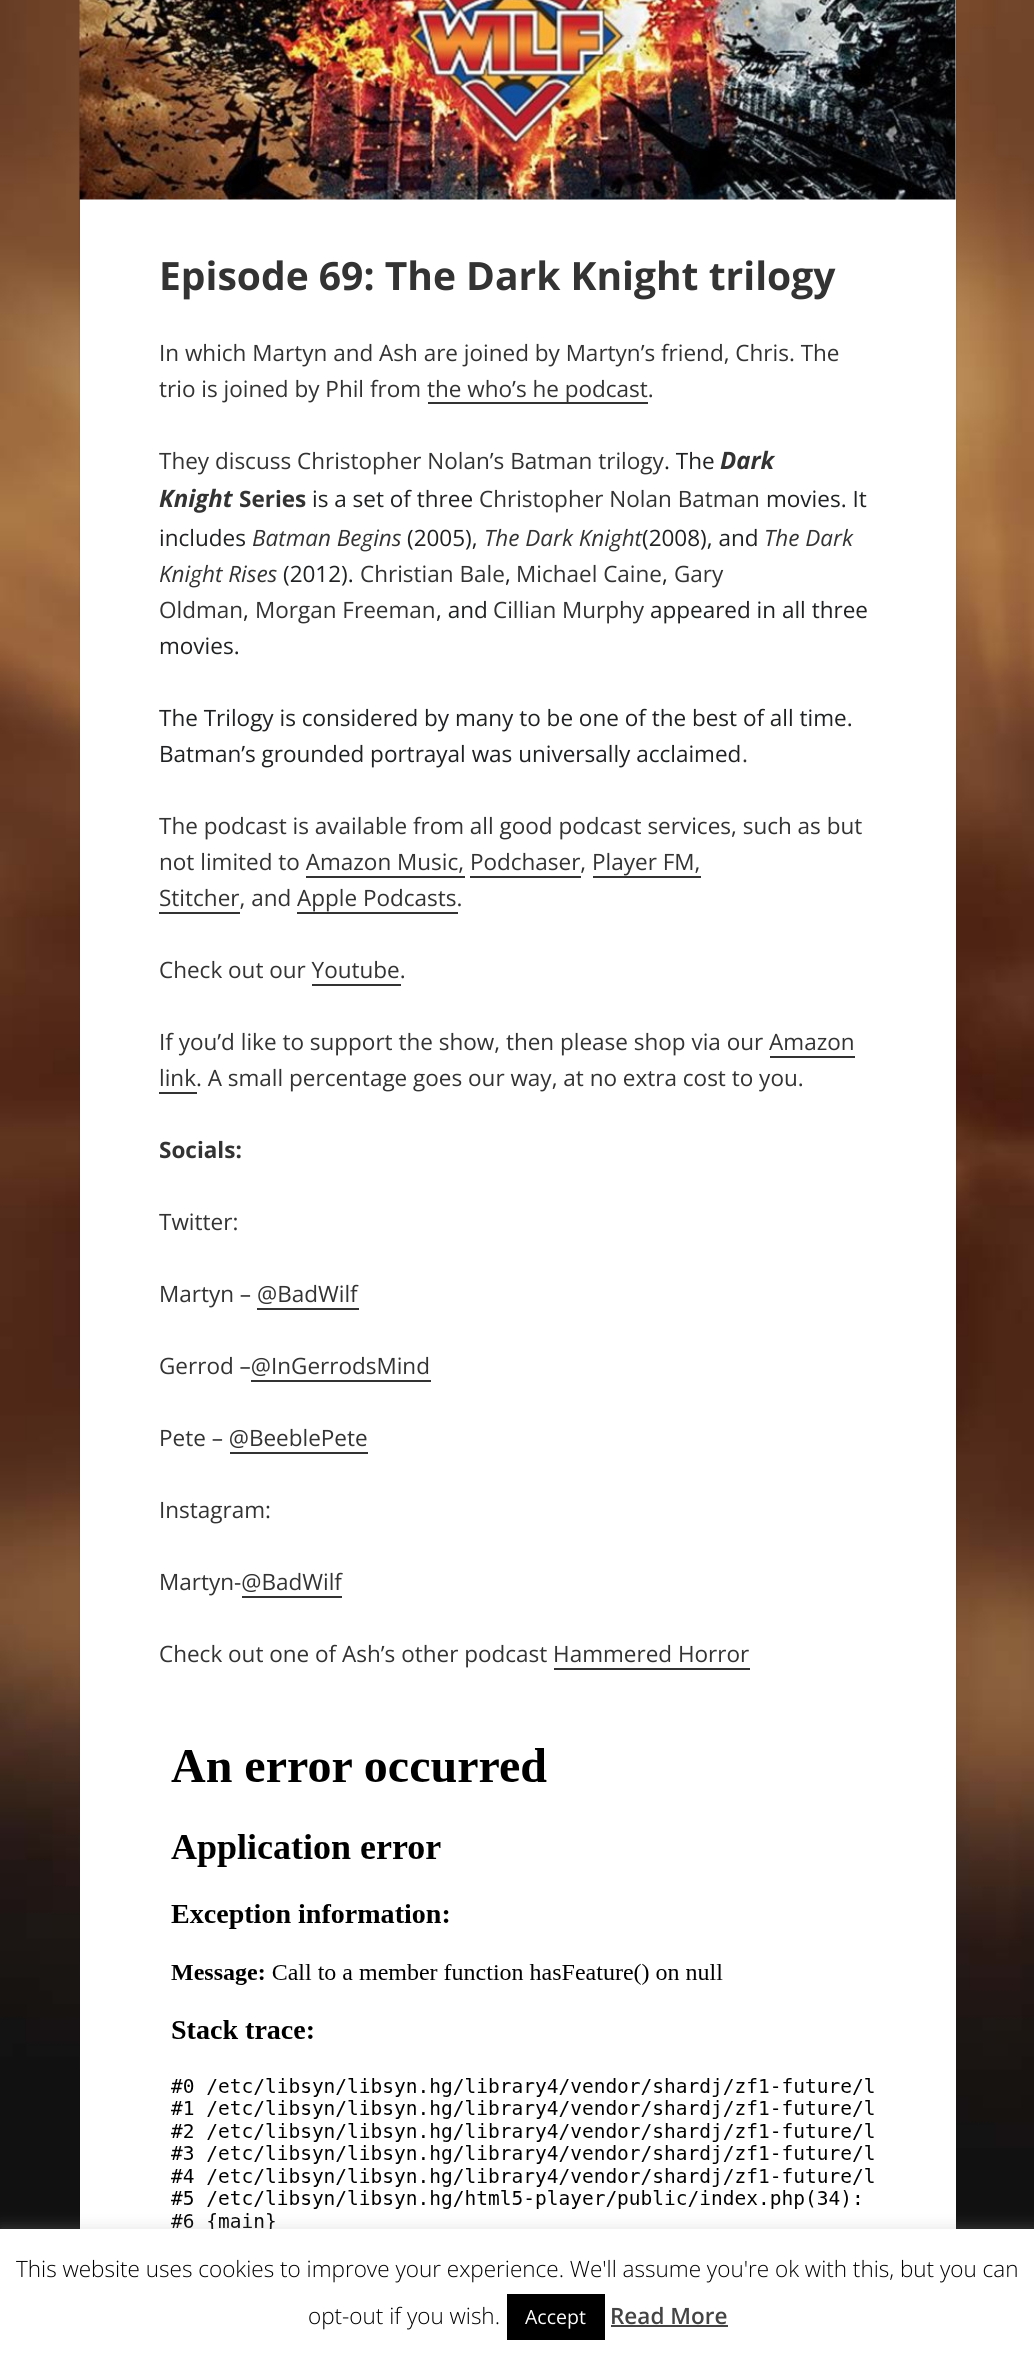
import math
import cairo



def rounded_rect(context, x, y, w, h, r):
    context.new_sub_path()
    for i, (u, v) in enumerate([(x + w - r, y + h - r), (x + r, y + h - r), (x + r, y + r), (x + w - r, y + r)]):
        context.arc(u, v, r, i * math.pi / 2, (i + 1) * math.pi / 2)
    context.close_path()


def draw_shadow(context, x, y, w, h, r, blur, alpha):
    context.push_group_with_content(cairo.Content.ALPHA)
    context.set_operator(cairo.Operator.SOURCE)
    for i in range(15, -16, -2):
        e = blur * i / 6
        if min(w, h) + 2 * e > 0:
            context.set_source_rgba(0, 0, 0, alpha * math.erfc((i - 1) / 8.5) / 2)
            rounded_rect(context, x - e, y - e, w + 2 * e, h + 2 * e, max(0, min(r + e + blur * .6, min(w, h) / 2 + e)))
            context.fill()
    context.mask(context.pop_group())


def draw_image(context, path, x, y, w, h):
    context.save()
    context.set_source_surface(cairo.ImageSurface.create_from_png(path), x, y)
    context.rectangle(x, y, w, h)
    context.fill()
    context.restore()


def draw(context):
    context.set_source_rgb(17 / 255, 17 / 255, 17 / 255)
    context.paint()
    draw_image(context, "images/1.png", 0, 0, 1034, 2148)
    context.set_source_rgb(0, 0, 0)
    draw_shadow(context, 80, -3, 876, 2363, 0, 1, 0.15)
    context.set_source_rgb(1, 1, 1)
    context.rectangle(80, 0, 876, 2229)
    context.fill()
    draw_image(context, "images/2.png", 79, 0, 877, 200)
    context.set_source_rgb(51 / 255, 51 / 255, 51 / 255)
    context.rectangle(428, 402, 220, 2)
    context.fill()
    context.rectangle(306, 876, 159, 2)
    context.fill()
    context.rectangle(470, 876, 111, 2)
    context.fill()
    context.rectangle(593, 876, 108, 2)
    context.fill()
    context.rectangle(159, 912, 81, 2)
    context.fill()
    context.rectangle(297, 912, 161, 2)
    context.fill()
    context.rectangle(312, 984, 89, 2)
    context.fill()
    context.rectangle(770, 1056, 85, 2)
    context.fill()
    context.rectangle(159, 1092, 38, 2)
    context.fill()
    context.rectangle(257, 1308, 102, 2)
    context.fill()
    context.rectangle(251, 1380, 180, 2)
    context.fill()
    context.rectangle(230, 1452, 138, 2)
    context.fill()
    context.rectangle(242, 1596, 100, 2)
    context.fill()
    context.rectangle(554, 1668, 196, 2)
    context.fill()
    draw_image(context, "images/3.png", 171, 1748, 703, 481)
    context.set_source_rgb(172 / 255, 171 / 255, 171 / 255)
    draw_shadow(context, 0, 2228, 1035, 129, 0, 7.5, 0.3)
    context.set_source_rgb(1, 1, 1)
    context.rectangle(0, 2229, 1034, 128)
    context.fill()
    context.set_source_rgb(0, 0, 0)
    context.rectangle(507, 2294, 98, 46)
    context.fill()
    context.set_source_rgb(68 / 255, 68 / 255, 68 / 255)
    context.rectangle(611, 2325, 117, 2)
    context.fill()
    context.select_font_face("Open Sans", cairo.FontSlant.NORMAL, cairo.FontWeight.BOLD)
    context.set_font_size(39)
    context.set_source_rgb(51 / 255, 51 / 255, 51 / 255)
    context.move_to(159, 290)
    context.show_text("Episode 69: The Dark Knight trilogy")
    context.select_font_face("Open Sans")
    context.set_font_size(22.5)
    context.move_to(159, 361)
    context.show_text("In which Martyn and Ash are joined by Martyn’s friend, Chris. The")
    context.move_to(159, 397)
    context.show_text("trio is joined by Phil from")
    context.move_to(427, 397)
    context.show_text("the who’s he podcast.")
    context.move_to(159, 469)
    context.show_text("They discuss Christopher Nolan’s Batman trilogy")
    context.set_source_rgb(32 / 255, 33 / 255, 34 / 255)
    context.move_to(664, 469)
    context.show_text(". The")
    context.select_font_face("Open Sans", cairo.FontSlant.ITALIC, cairo.FontWeight.BOLD)
    context.set_font_size(24)
    context.set_source_rgb(51 / 255, 51 / 255, 51 / 255)
    context.move_to(720, 469)
    context.show_text("Dark")
    context.move_to(159, 507)
    context.show_text("Knight")
    context.select_font_face("Open Sans", cairo.FontSlant.NORMAL, cairo.FontWeight.BOLD)
    context.set_font_size(22.5)
    context.move_to(239, 507)
    context.show_text("Series")
    context.select_font_face("Open Sans")
    context.set_source_rgb(32 / 255, 33 / 255, 34 / 255)
    context.move_to(312, 507)
    context.show_text("is a set of three")
    context.set_source_rgb(51 / 255, 51 / 255, 51 / 255)
    context.move_to(479, 507)
    context.show_text("Christopher Nolan Batman")
    context.set_source_rgb(32 / 255, 33 / 255, 34 / 255)
    context.move_to(766, 507)
    context.show_text("movies. It")
    context.move_to(159, 546)
    context.show_text("includes")
    context.select_font_face("Open Sans", cairo.FontSlant.ITALIC)
    context.set_source_rgb(51 / 255, 51 / 255, 51 / 255)
    context.move_to(252, 546)
    context.show_text("Batman Begins")
    context.select_font_face("Open Sans")
    context.set_source_rgb(32 / 255, 33 / 255, 34 / 255)
    context.move_to(407, 546)
    context.show_text("(2005),")
    context.select_font_face("Open Sans", cairo.FontSlant.ITALIC)
    context.set_source_rgb(51 / 255, 51 / 255, 51 / 255)
    context.move_to(484, 546)
    context.show_text("The Dark Knight")
    context.select_font_face("Open Sans")
    context.set_source_rgb(32 / 255, 33 / 255, 34 / 255)
    context.move_to(642, 546)
    context.show_text("(2008), and")
    context.select_font_face("Open Sans", cairo.FontSlant.ITALIC)
    context.set_source_rgb(51 / 255, 51 / 255, 51 / 255)
    context.move_to(764, 546)
    context.show_text("The Dark")
    context.move_to(159, 582)
    context.show_text("Knight Rises")
    context.select_font_face("Open Sans")
    context.set_source_rgb(32 / 255, 33 / 255, 34 / 255)
    context.move_to(283, 582)
    context.show_text("(2012).")
    context.set_source_rgb(51 / 255, 51 / 255, 51 / 255)
    context.move_to(360, 582)
    context.show_text("Christian Bale")
    context.set_source_rgb(32 / 255, 33 / 255, 34 / 255)
    context.move_to(505, 582)
    context.show_text(",")
    context.set_source_rgb(51 / 255, 51 / 255, 51 / 255)
    context.move_to(516, 582)
    context.show_text("Michael Caine")
    context.set_source_rgb(32 / 255, 33 / 255, 34 / 255)
    context.move_to(662, 582)
    context.show_text(",")
    context.set_source_rgb(51 / 255, 51 / 255, 51 / 255)
    context.move_to(674, 582)
    context.show_text("Gary")
    context.move_to(159, 618)
    context.show_text("Oldman")
    context.set_source_rgb(32 / 255, 33 / 255, 34 / 255)
    context.move_to(243, 618)
    context.show_text(",")
    context.set_source_rgb(51 / 255, 51 / 255, 51 / 255)
    context.move_to(255, 618)
    context.show_text("Morgan Freeman")
    context.set_source_rgb(32 / 255, 33 / 255, 34 / 255)
    context.move_to(436, 618)
    context.show_text(", and")
    context.set_source_rgb(51 / 255, 51 / 255, 51 / 255)
    context.move_to(493, 618)
    context.show_text("Cillian Murphy")
    context.set_source_rgb(32 / 255, 33 / 255, 34 / 255)
    context.move_to(650, 618)
    context.show_text("appeared in all three")
    context.move_to(159, 654)
    context.show_text("movies.")
    context.move_to(159, 726)
    context.show_text("The Trilogy is considered by many to be one of the best of all time.")
    context.move_to(159, 762)
    context.show_text("Batman’s grounded portrayal was universally acclaimed")
    context.set_source_rgb(51 / 255, 51 / 255, 51 / 255)
    context.move_to(742, 762)
    context.show_text(".")
    context.move_to(159, 834)
    context.show_text("The podcast is available from all good podcast services, such as but")
    context.move_to(159, 870)
    context.show_text("not limited to Amazon Music, Podchaser, Player FM,")
    context.move_to(159, 906)
    context.show_text("Stitcher, and Apple Podcasts.")
    context.move_to(159, 978)
    context.show_text("Check out our Youtube.")
    context.move_to(159, 1050)
    context.show_text("If you’d like to support the show, then please shop via our Amazon")
    context.move_to(159, 1086)
    context.show_text("link. A small percentage goes our way, at no extra cost to you.")
    context.select_font_face("Open Sans", cairo.FontSlant.NORMAL, cairo.FontWeight.BOLD)
    context.move_to(159, 1158)
    context.show_text("Socials:")
    context.select_font_face("Open Sans")
    context.move_to(159, 1230)
    context.show_text("Twitter:")
    context.move_to(159, 1302)
    context.show_text("Martyn – @BadWilf")
    context.move_to(159, 1374)
    context.show_text("Gerrod –@InGerrodsMind")
    context.move_to(159, 1446)
    context.show_text("Pete – @BeeblePete")
    context.move_to(159, 1518)
    context.show_text("Instagram:")
    context.move_to(159, 1590)
    context.show_text("Martyn-@BadWilf")
    context.move_to(159, 1662)
    context.show_text("Check out one of Ash’s other podcast Hammered Horror")
    context.select_font_face("Open Sans Light")
    context.set_source_rgb(0, 0, 0)
    context.move_to(16, 2277)
    context.show_text("This website uses cookies to improve your experience. We'll assume you're ok with this, but you can")
    context.move_to(308, 2324)
    context.show_text("opt-out if you wish.")
    context.select_font_face("Open Sans")
    context.set_font_size(19.5)
    context.set_source_rgb(1, 1, 1)
    context.move_to(525, 2324)
    context.show_text("Accept")
    context.select_font_face("Open Sans SemiBold")
    context.set_font_size(22.5)
    context.set_source_rgb(68 / 255, 68 / 255, 68 / 255)
    context.move_to(610, 2324)
    context.show_text("Read More")


surface = cairo.ImageSurface(cairo.Format.RGB24, 1034, 2357)
context = cairo.Context(surface)
options = cairo.FontOptions()
options.set_hint_metrics(cairo.HintMetrics.OFF)
options.set_hint_style(cairo.HintStyle.NONE)
context.set_font_options(options)
context.set_miter_limit(4)
draw(context)
surface.write_to_png("out.png")
